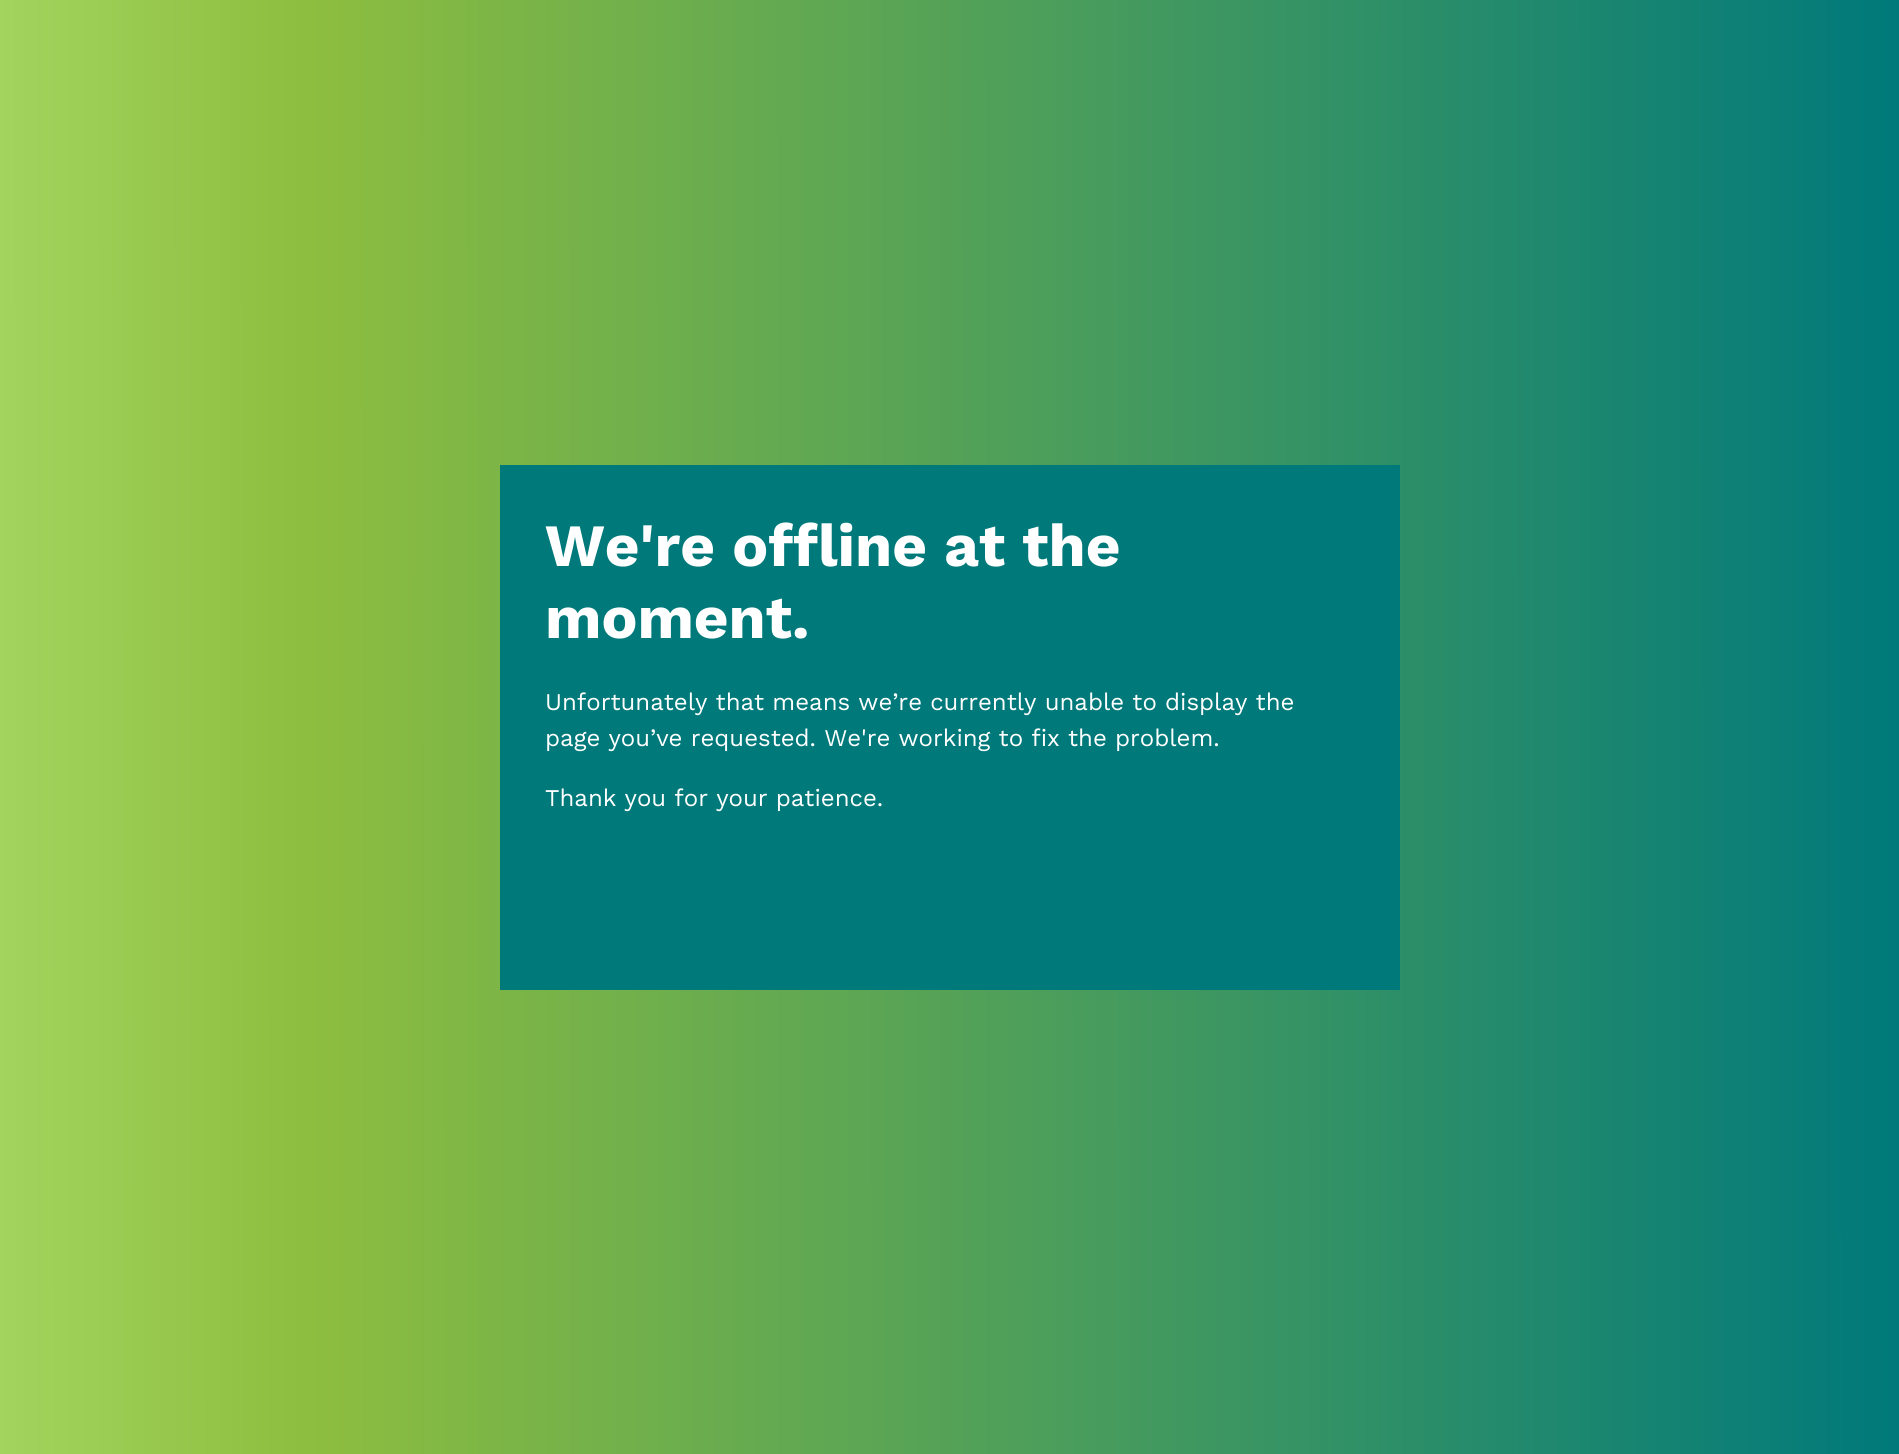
import math
import cairo



def draw(context):
    context.set_source_rgb(1, 1, 1)
    context.paint()
    gradient = cairo.LinearGradient(0, 728, 1899, 727)
    gradient.add_color_stop_rgba(0, 162 / 255, 212 / 255, 94 / 255, 1)
    gradient.add_color_stop_rgba(0.16, 142 / 255, 190 / 255, 63 / 255, 1)
    gradient.add_color_stop_rgba(1, 0, 121 / 255, 123 / 255, 1)
    context.set_source(gradient)
    context.rectangle(0, 0, 1899, 1454)
    context.fill()
    context.set_source_rgb(0, 121 / 255, 123 / 255)
    context.rectangle(500, 465, 900, 525)
    context.fill()
    context.select_font_face("Work Sans", cairo.FontSlant.NORMAL, cairo.FontWeight.BOLD)
    context.set_font_size(60)
    context.set_source_rgb(1, 1, 1)
    context.move_to(545, 566)
    context.show_text("We're offline at the")
    context.move_to(545, 638)
    context.show_text("moment.")
    context.select_font_face("Work Sans")
    context.set_font_size(24)
    context.move_to(545, 710)
    context.show_text("Unfortunately that means we’re currently unable to display the")
    context.move_to(545, 746)
    context.show_text("page you’ve requested. We're working to fix the problem.")
    context.move_to(545, 806)
    context.show_text("Thank you for your patience.")


surface = cairo.ImageSurface(cairo.Format.RGB24, 1899, 1454)
context = cairo.Context(surface)
options = cairo.FontOptions()
options.set_hint_metrics(cairo.HintMetrics.OFF)
options.set_hint_style(cairo.HintStyle.NONE)
context.set_font_options(options)
context.set_miter_limit(4)
draw(context)
surface.write_to_png("out.png")
